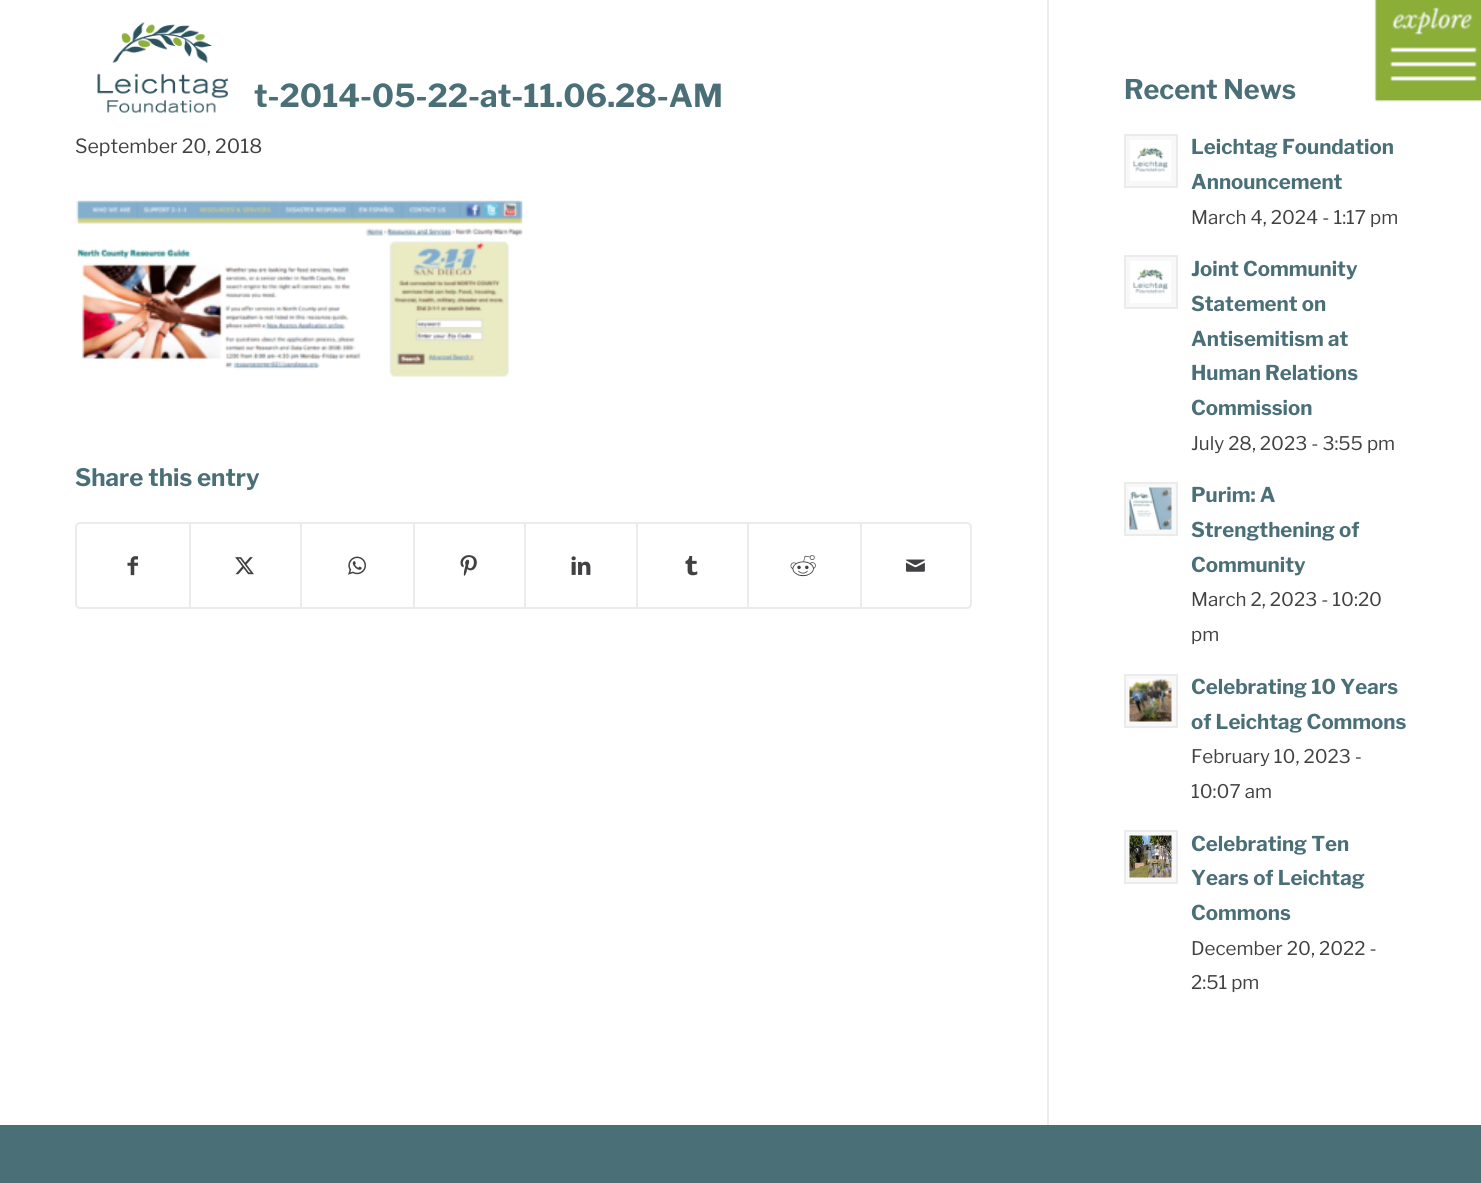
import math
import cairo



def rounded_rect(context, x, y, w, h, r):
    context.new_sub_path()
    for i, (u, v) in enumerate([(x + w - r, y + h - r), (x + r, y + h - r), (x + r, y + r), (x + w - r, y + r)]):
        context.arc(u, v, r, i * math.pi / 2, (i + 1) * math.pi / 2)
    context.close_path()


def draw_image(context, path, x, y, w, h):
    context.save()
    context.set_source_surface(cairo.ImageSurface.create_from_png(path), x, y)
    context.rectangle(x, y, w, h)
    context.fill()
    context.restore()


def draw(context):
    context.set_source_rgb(1, 1, 1)
    context.paint()
    draw_image(context, "images/1.png", 1374, 0, 107, 102)
    draw_image(context, "images/2.png", 97, 22, 131, 91)
    draw_image(context, "images/3.png", 76, 200, 447, 177)
    rounded_rect(context, 76, 523, 895, 85, 4)
    context.set_source_rgb(235 / 255, 235 / 255, 235 / 255)
    context.stroke()
    draw_image(context, "images/4.png", 127, 556, 11, 20)
    context.rectangle(189, 524, 2, 84)
    context.fill()
    draw_image(context, "images/5.png", 235, 557, 19, 18)
    context.rectangle(300, 524, 2, 84)
    context.fill()
    draw_image(context, "images/6.png", 348, 556, 18, 19)
    context.rectangle(413, 524, 2, 84)
    context.fill()
    draw_image(context, "images/7.png", 460, 555, 17, 21)
    context.rectangle(524, 524, 2, 84)
    context.fill()
    draw_image(context, "images/8.png", 571, 556, 20, 19)
    context.rectangle(636, 524, 2, 84)
    context.fill()
    draw_image(context, "images/9.png", 685, 556, 13, 20)
    context.rectangle(747, 524, 2, 84)
    context.fill()
    draw_image(context, "images/10.png", 790, 555, 26, 22)
    context.rectangle(860, 524, 2, 84)
    context.fill()
    draw_image(context, "images/11.png", 906, 559, 19, 13)
    context.rectangle(1047, 0, 2, 1125)
    context.fill()
    context.set_source_rgb(248 / 255, 248 / 255, 248 / 255)
    context.rectangle(1125, 135, 52, 52)
    context.fill_preserve()
    context.set_source_rgb(235 / 255, 235 / 255, 235 / 255)
    context.stroke()
    draw_image(context, "images/12.png", 1130, 140, 41, 41)
    context.set_source_rgb(248 / 255, 248 / 255, 248 / 255)
    context.rectangle(1125, 256, 52, 52)
    context.fill_preserve()
    context.set_source_rgb(235 / 255, 235 / 255, 235 / 255)
    context.stroke()
    draw_image(context, "images/13.png", 1130, 261, 41, 42)
    context.set_source_rgb(248 / 255, 248 / 255, 248 / 255)
    context.rectangle(1125, 483, 52, 52)
    context.fill_preserve()
    context.set_source_rgb(235 / 255, 235 / 255, 235 / 255)
    context.stroke()
    draw_image(context, "images/14.png", 1129, 487, 43, 43)
    context.set_source_rgb(248 / 255, 248 / 255, 248 / 255)
    context.rectangle(1125, 675, 52, 52)
    context.fill_preserve()
    context.set_source_rgb(235 / 255, 235 / 255, 235 / 255)
    context.stroke()
    draw_image(context, "images/15.png", 1129, 679, 43, 43)
    context.set_source_rgb(248 / 255, 248 / 255, 248 / 255)
    context.rectangle(1125, 831, 52, 52)
    context.fill_preserve()
    context.set_source_rgb(235 / 255, 235 / 255, 235 / 255)
    context.stroke()
    draw_image(context, "images/16.png", 1129, 835, 43, 43)
    context.set_source_rgb(74 / 255, 111 / 255, 119 / 255)
    context.rectangle(0, 1125, 1481, 58)
    context.fill()
    context.select_font_face("Libre Franklin", cairo.FontSlant.NORMAL, cairo.FontWeight.BOLD)
    context.set_font_size(31.5)
    context.move_to(254, 107)
    context.show_text("t-2014-05-22-at-11.06.28-AM")
    context.select_font_face("Libre Franklin Thin")
    context.set_font_size(19.5)
    context.set_source_rgb(65 / 255, 64 / 255, 66 / 255)
    context.move_to(75, 153)
    context.show_text("September 20, 2018")
    context.select_font_face("Libre Franklin", cairo.FontSlant.NORMAL, cairo.FontWeight.BOLD)
    context.set_font_size(24)
    context.set_source_rgb(74 / 255, 111 / 255, 119 / 255)
    context.move_to(75, 486)
    context.show_text("Share this entry")
    context.set_font_size(27)
    context.move_to(1124, 99)
    context.show_text("Recent News")
    context.set_font_size(20.4)
    context.move_to(1191, 154)
    context.show_text("Leichtag Foundation")
    context.move_to(1191, 189)
    context.show_text("Announcement")
    context.select_font_face("Libre Franklin Thin")
    context.set_font_size(18.75)
    context.set_source_rgb(65 / 255, 64 / 255, 66 / 255)
    context.move_to(1191, 224)
    context.show_text("March 4, 2024 - 1:17 pm")
    context.select_font_face("Libre Franklin", cairo.FontSlant.NORMAL, cairo.FontWeight.BOLD)
    context.set_font_size(20.4)
    context.set_source_rgb(74 / 255, 111 / 255, 119 / 255)
    context.move_to(1191, 276)
    context.show_text("Joint Community")
    context.move_to(1191, 311)
    context.show_text("Statement on")
    context.move_to(1191, 346)
    context.show_text("Antisemitism at")
    context.move_to(1191, 380)
    context.show_text("Human Relations")
    context.move_to(1191, 415)
    context.show_text("Commission")
    context.select_font_face("Libre Franklin Thin")
    context.set_font_size(18.75)
    context.set_source_rgb(65 / 255, 64 / 255, 66 / 255)
    context.move_to(1191, 450)
    context.show_text("July 28, 2023 - 3:55 pm")
    context.select_font_face("Libre Franklin", cairo.FontSlant.NORMAL, cairo.FontWeight.BOLD)
    context.set_font_size(20.4)
    context.set_source_rgb(74 / 255, 111 / 255, 119 / 255)
    context.move_to(1191, 502)
    context.show_text("Purim: A")
    context.move_to(1191, 537)
    context.show_text("Strengthening of")
    context.move_to(1191, 572)
    context.show_text("Community")
    context.select_font_face("Libre Franklin Thin")
    context.set_font_size(18.75)
    context.set_source_rgb(65 / 255, 64 / 255, 66 / 255)
    context.move_to(1191, 606)
    context.show_text("March 2, 2023 - 10:20")
    context.move_to(1191, 641)
    context.show_text("pm")
    context.select_font_face("Libre Franklin", cairo.FontSlant.NORMAL, cairo.FontWeight.BOLD)
    context.set_font_size(20.4)
    context.set_source_rgb(74 / 255, 111 / 255, 119 / 255)
    context.move_to(1191, 694)
    context.show_text("Celebrating 10 Years")
    context.move_to(1191, 729)
    context.show_text("of Leichtag Commons")
    context.select_font_face("Libre Franklin Thin")
    context.set_font_size(18.75)
    context.set_source_rgb(65 / 255, 64 / 255, 66 / 255)
    context.move_to(1191, 763)
    context.show_text("February 10, 2023 -")
    context.move_to(1191, 798)
    context.show_text("10:07 am")
    context.select_font_face("Libre Franklin", cairo.FontSlant.NORMAL, cairo.FontWeight.BOLD)
    context.set_font_size(20.4)
    context.set_source_rgb(74 / 255, 111 / 255, 119 / 255)
    context.move_to(1191, 851)
    context.show_text("Celebrating Ten")
    context.move_to(1191, 885)
    context.show_text("Years of Leichtag")
    context.move_to(1191, 920)
    context.show_text("Commons")
    context.select_font_face("Libre Franklin Thin")
    context.set_font_size(18.75)
    context.set_source_rgb(65 / 255, 64 / 255, 66 / 255)
    context.move_to(1191, 955)
    context.show_text("December 20, 2022 -")
    context.move_to(1191, 989)
    context.show_text("2:51 pm")


surface = cairo.ImageSurface(cairo.Format.RGB24, 1481, 1183)
context = cairo.Context(surface)
options = cairo.FontOptions()
options.set_hint_metrics(cairo.HintMetrics.OFF)
options.set_hint_style(cairo.HintStyle.NONE)
context.set_font_options(options)
context.set_miter_limit(4)
draw(context)
surface.write_to_png("out.png")
